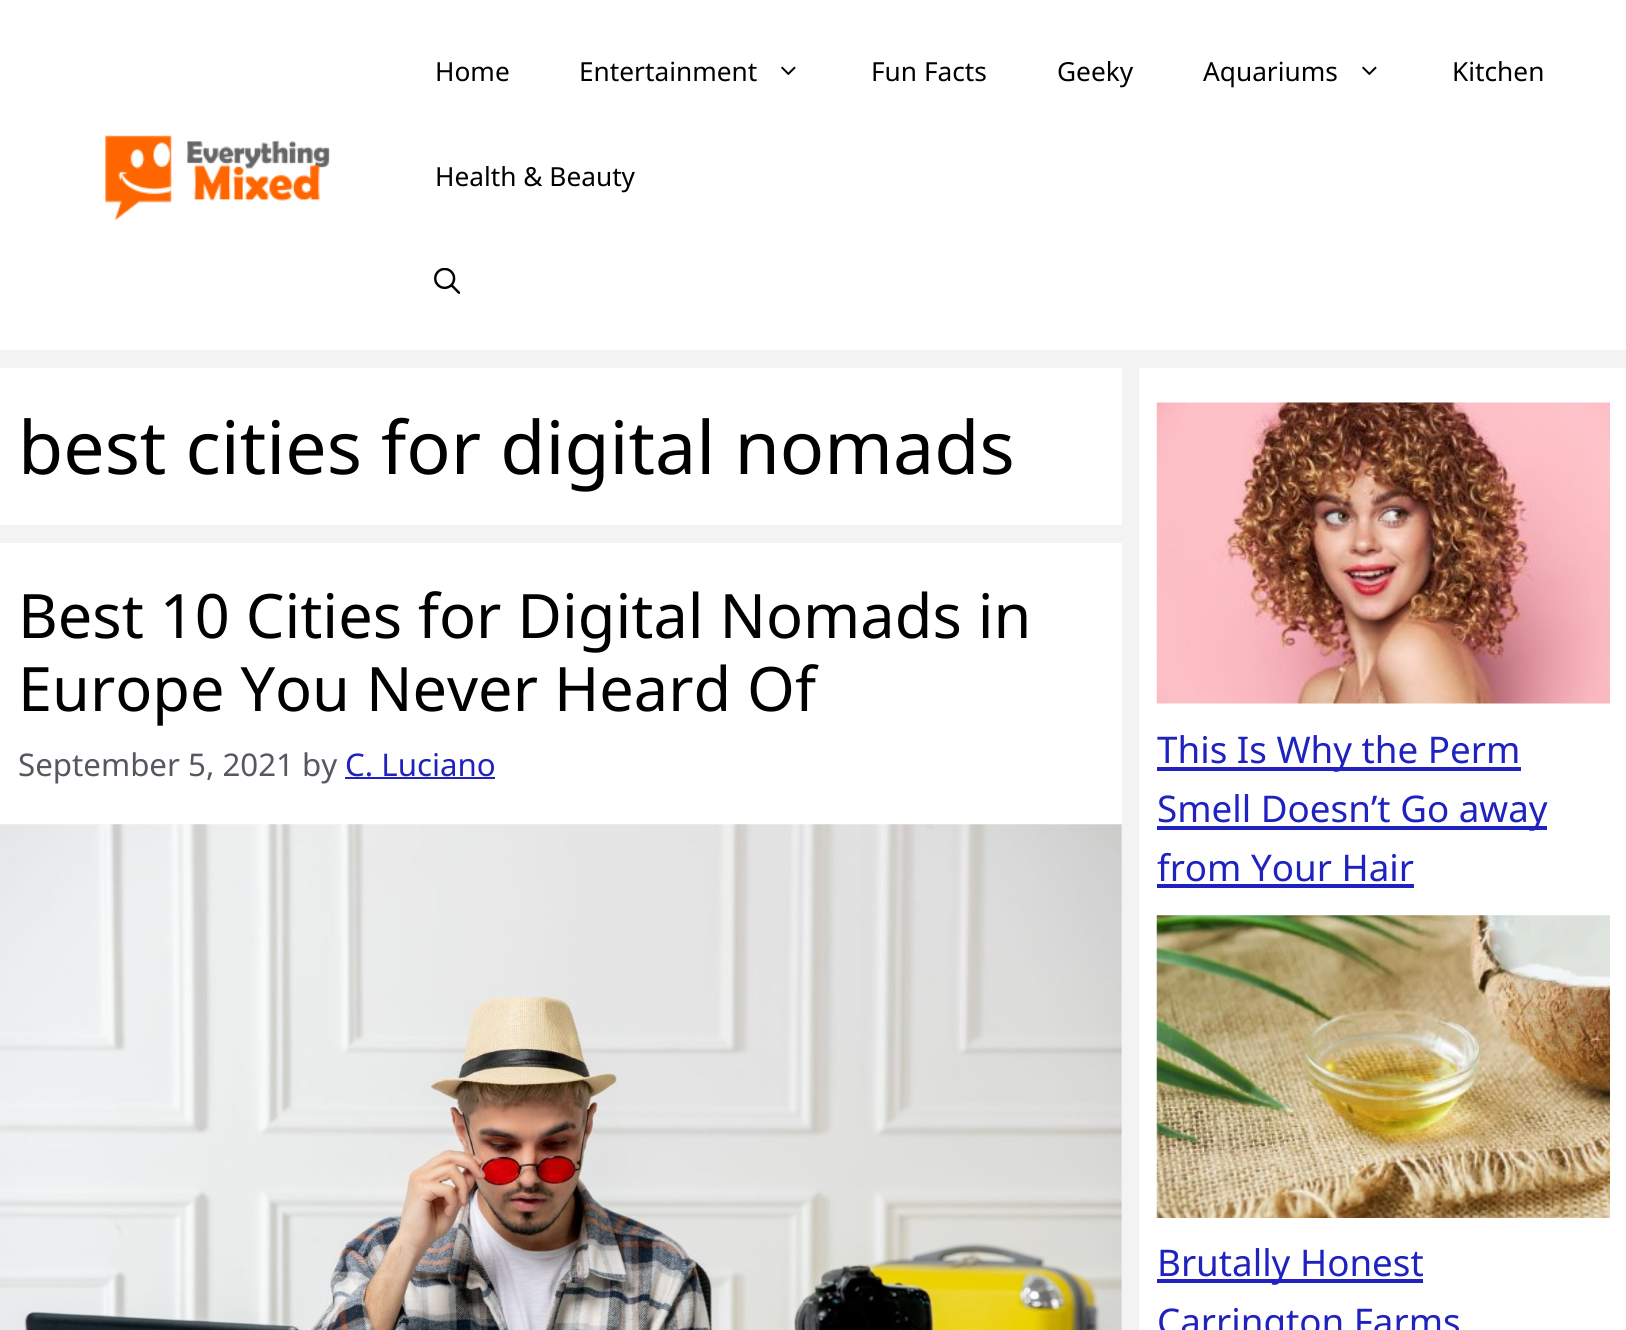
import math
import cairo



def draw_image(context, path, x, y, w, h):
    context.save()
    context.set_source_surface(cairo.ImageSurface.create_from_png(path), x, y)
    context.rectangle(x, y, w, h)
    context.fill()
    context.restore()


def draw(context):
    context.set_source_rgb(243 / 255, 243 / 255, 243 / 255)
    context.paint()
    context.set_source_rgb(1, 1, 1)
    context.rectangle(0, 0, 1626, 350)
    context.fill()
    draw_image(context, "images/1.png", 105, 135, 226, 86)
    draw_image(context, "images/2.png", 781, 66, 15, 10)
    draw_image(context, "images/2.png", 1362, 66, 15, 10)
    draw_image(context, "images/3.png", 434, 268, 26, 26)
    context.rectangle(0, 368, 1122, 157)
    context.fill()
    context.rectangle(0, 543, 1122, 787)
    context.fill()
    context.set_source_rgb(31 / 255, 34 / 255, 191 / 255)
    context.rectangle(345, 777, 150, 2)
    context.fill()
    draw_image(context, "images/4.png", 0, 824, 1122, 506)
    context.set_source_rgb(1, 1, 1)
    context.rectangle(1139, 368, 487, 962)
    context.fill()
    draw_image(context, "images/5.png", 1156, 402, 454, 302)
    context.set_source_rgb(31 / 255, 34 / 255, 191 / 255)
    context.rectangle(1157, 767, 364, 4)
    context.fill()
    context.rectangle(1157, 826, 390, 4)
    context.fill()
    context.rectangle(1157, 884, 257, 4)
    context.fill()
    draw_image(context, "images/6.png", 1156, 915, 454, 303)
    context.rectangle(1157, 1279, 266, 4)
    context.fill()
    context.select_font_face("Noto Sans")
    context.set_font_size(26.25)
    context.set_source_rgb(0, 0, 0)
    context.move_to(435, 81)
    context.show_text("Home")
    context.move_to(579, 81)
    context.show_text("Entertainment")
    context.move_to(871, 81)
    context.show_text("Fun Facts")
    context.move_to(1057, 81)
    context.show_text("Geeky")
    context.move_to(1203, 81)
    context.show_text("Aquariums")
    context.move_to(1452, 81)
    context.show_text("Kitchen")
    context.move_to(435, 186)
    context.show_text("Health & Beauty")
    context.set_font_size(73.5)
    context.move_to(18, 474)
    context.show_text("best cities for digital nomads")
    context.set_font_size(61.25)
    context.move_to(18, 638)
    context.show_text("Best 10 Cities for Digital Nomads in")
    context.move_to(18, 711)
    context.show_text("Europe You Never Heard Of")
    context.set_font_size(31.25)
    context.set_source_rgb(87 / 255, 87 / 255, 96 / 255)
    context.move_to(18, 776)
    context.show_text("September 5, 2021 by")
    context.set_source_rgb(31 / 255, 34 / 255, 191 / 255)
    context.move_to(345, 776)
    context.show_text("C. Luciano")
    context.set_font_size(36.75)
    context.move_to(1157, 763)
    context.show_text("This Is Why the Perm")
    context.move_to(1157, 822)
    context.show_text("Smell Doesn’t Go away")
    context.move_to(1157, 881)
    context.show_text("from Your Hair")
    context.move_to(1157, 1276)
    context.show_text("Brutally Honest")
    context.move_to(1157, 1335)
    context.show_text("Carrington Farms")


surface = cairo.ImageSurface(cairo.Format.RGB24, 1626, 1330)
context = cairo.Context(surface)
options = cairo.FontOptions()
options.set_hint_metrics(cairo.HintMetrics.OFF)
options.set_hint_style(cairo.HintStyle.NONE)
context.set_font_options(options)
context.set_miter_limit(4)
draw(context)
surface.write_to_png("out.png")
